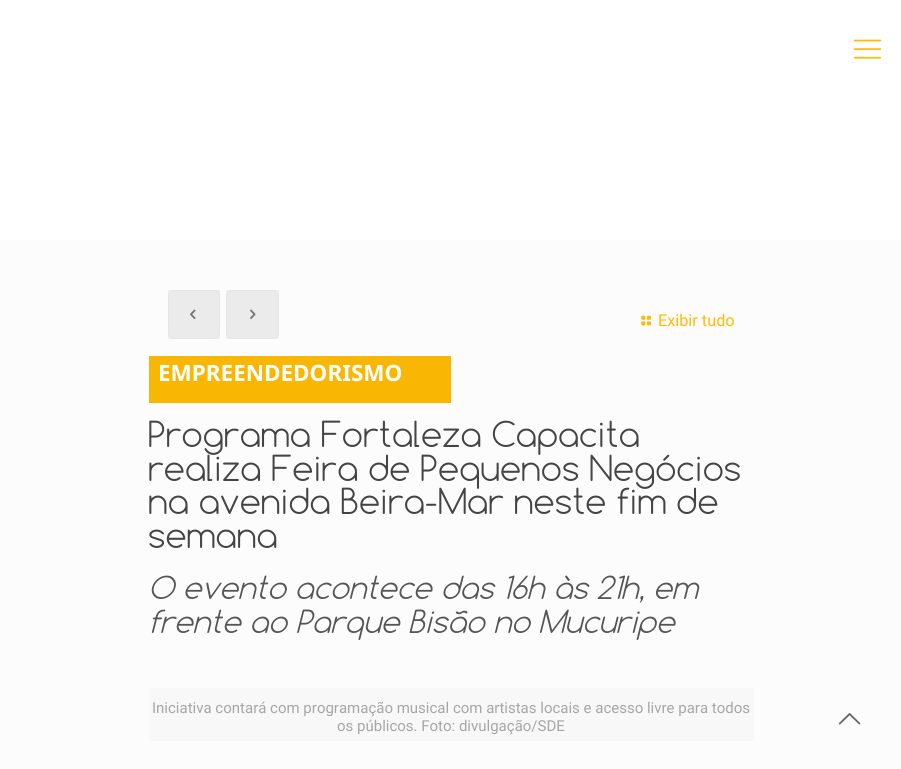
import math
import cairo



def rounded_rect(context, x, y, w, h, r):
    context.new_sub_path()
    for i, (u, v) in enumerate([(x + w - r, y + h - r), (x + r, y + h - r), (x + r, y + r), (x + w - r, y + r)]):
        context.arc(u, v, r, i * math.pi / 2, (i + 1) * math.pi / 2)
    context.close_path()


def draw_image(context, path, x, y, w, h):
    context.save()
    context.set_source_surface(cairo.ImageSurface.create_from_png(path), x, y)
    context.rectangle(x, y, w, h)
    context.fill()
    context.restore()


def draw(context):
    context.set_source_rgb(252 / 255, 252 / 255, 252 / 255)
    context.paint()
    context.set_source_rgb(1, 1, 1)
    context.rectangle(0, 0, 901, 240)
    context.fill()
    draw_image(context, "images/1.png", 853, 39, 29, 20)
    context.set_source_rgb(247 / 255, 247 / 255, 247 / 255)
    rounded_rect(context, 168.5, 290.5, 51, 48, 5.5)
    context.fill_preserve()
    context.set_source_rgb(240 / 255, 240 / 255, 240 / 255)
    context.set_line_width(1)
    context.stroke()
    draw_image(context, "images/2.png", 190, 309, 6, 10)
    context.set_source_rgba(0, 0, 0, 0.05)
    context.rectangle(168, 290, 52, 49)
    context.fill()
    context.set_source_rgb(247 / 255, 247 / 255, 247 / 255)
    rounded_rect(context, 226.5, 290.5, 52, 48, 5.5)
    context.fill_preserve()
    context.set_source_rgb(240 / 255, 240 / 255, 240 / 255)
    context.stroke()
    draw_image(context, "images/3.png", 250, 309, 6, 10)
    context.set_source_rgba(0, 0, 0, 0.05)
    context.rectangle(226, 290, 53, 49)
    context.fill()
    draw_image(context, "images/4.png", 641, 315, 10, 11)
    context.set_source_rgb(249 / 255, 183 / 255, 3 / 255)
    context.rectangle(149, 356, 302, 47)
    context.fill()
    context.set_source_rgb(248 / 255, 248 / 255, 248 / 255)
    context.rectangle(149, 688, 605, 53)
    context.fill()
    draw_image(context, "images/5.png", 838, 713, 23, 12)
    context.select_font_face("Roboto")
    context.set_font_size(16.25)
    context.set_source_rgb(1, 187 / 255, 0)
    context.move_to(658, 326)
    context.show_text("Exibir tudo")
    context.select_font_face("Noto Sans", cairo.FontSlant.NORMAL, cairo.FontWeight.BOLD)
    context.set_font_size(22.5)
    context.set_source_rgb(1, 1, 1)
    context.move_to(158, 381)
    context.show_text("EMPREENDEDORISMO")
    context.select_font_face("Comfortaa Light")
    context.set_font_size(33.75)
    context.set_source_rgb(68 / 255, 68 / 255, 68 / 255)
    context.move_to(148, 447)
    context.show_text("Programa Fortaleza Capacita")
    context.move_to(148, 481)
    context.show_text("realiza Feira de Pequenos Negócios")
    context.move_to(148, 514)
    context.show_text("na avenida Beira-Mar neste fim de")
    context.move_to(148, 548)
    context.show_text("semana")
    context.select_font_face("Comfortaa Light", cairo.FontSlant.ITALIC)
    context.set_font_size(30)
    context.set_source_rgb(85 / 255, 85 / 255, 85 / 255)
    context.move_to(148, 599)
    context.show_text("O evento acontece das 16h às 21h, em")
    context.move_to(148, 633)
    context.show_text("frente ao Parque Bisão no Mucuripe")
    context.select_font_face("Roboto")
    context.set_font_size(15)
    context.set_source_rgb(166 / 255, 166 / 255, 166 / 255)
    context.move_to(152, 713)
    context.show_text("Iniciativa contará com programação musical com artistas locais e acesso livre para todos")
    context.move_to(337, 731)
    context.show_text("os públicos. Foto: divulgação/SDE")


surface = cairo.ImageSurface(cairo.Format.RGB24, 901, 769)
context = cairo.Context(surface)
options = cairo.FontOptions()
options.set_hint_metrics(cairo.HintMetrics.OFF)
options.set_hint_style(cairo.HintStyle.NONE)
context.set_font_options(options)
context.set_miter_limit(4)
draw(context)
surface.write_to_png("out.png")
